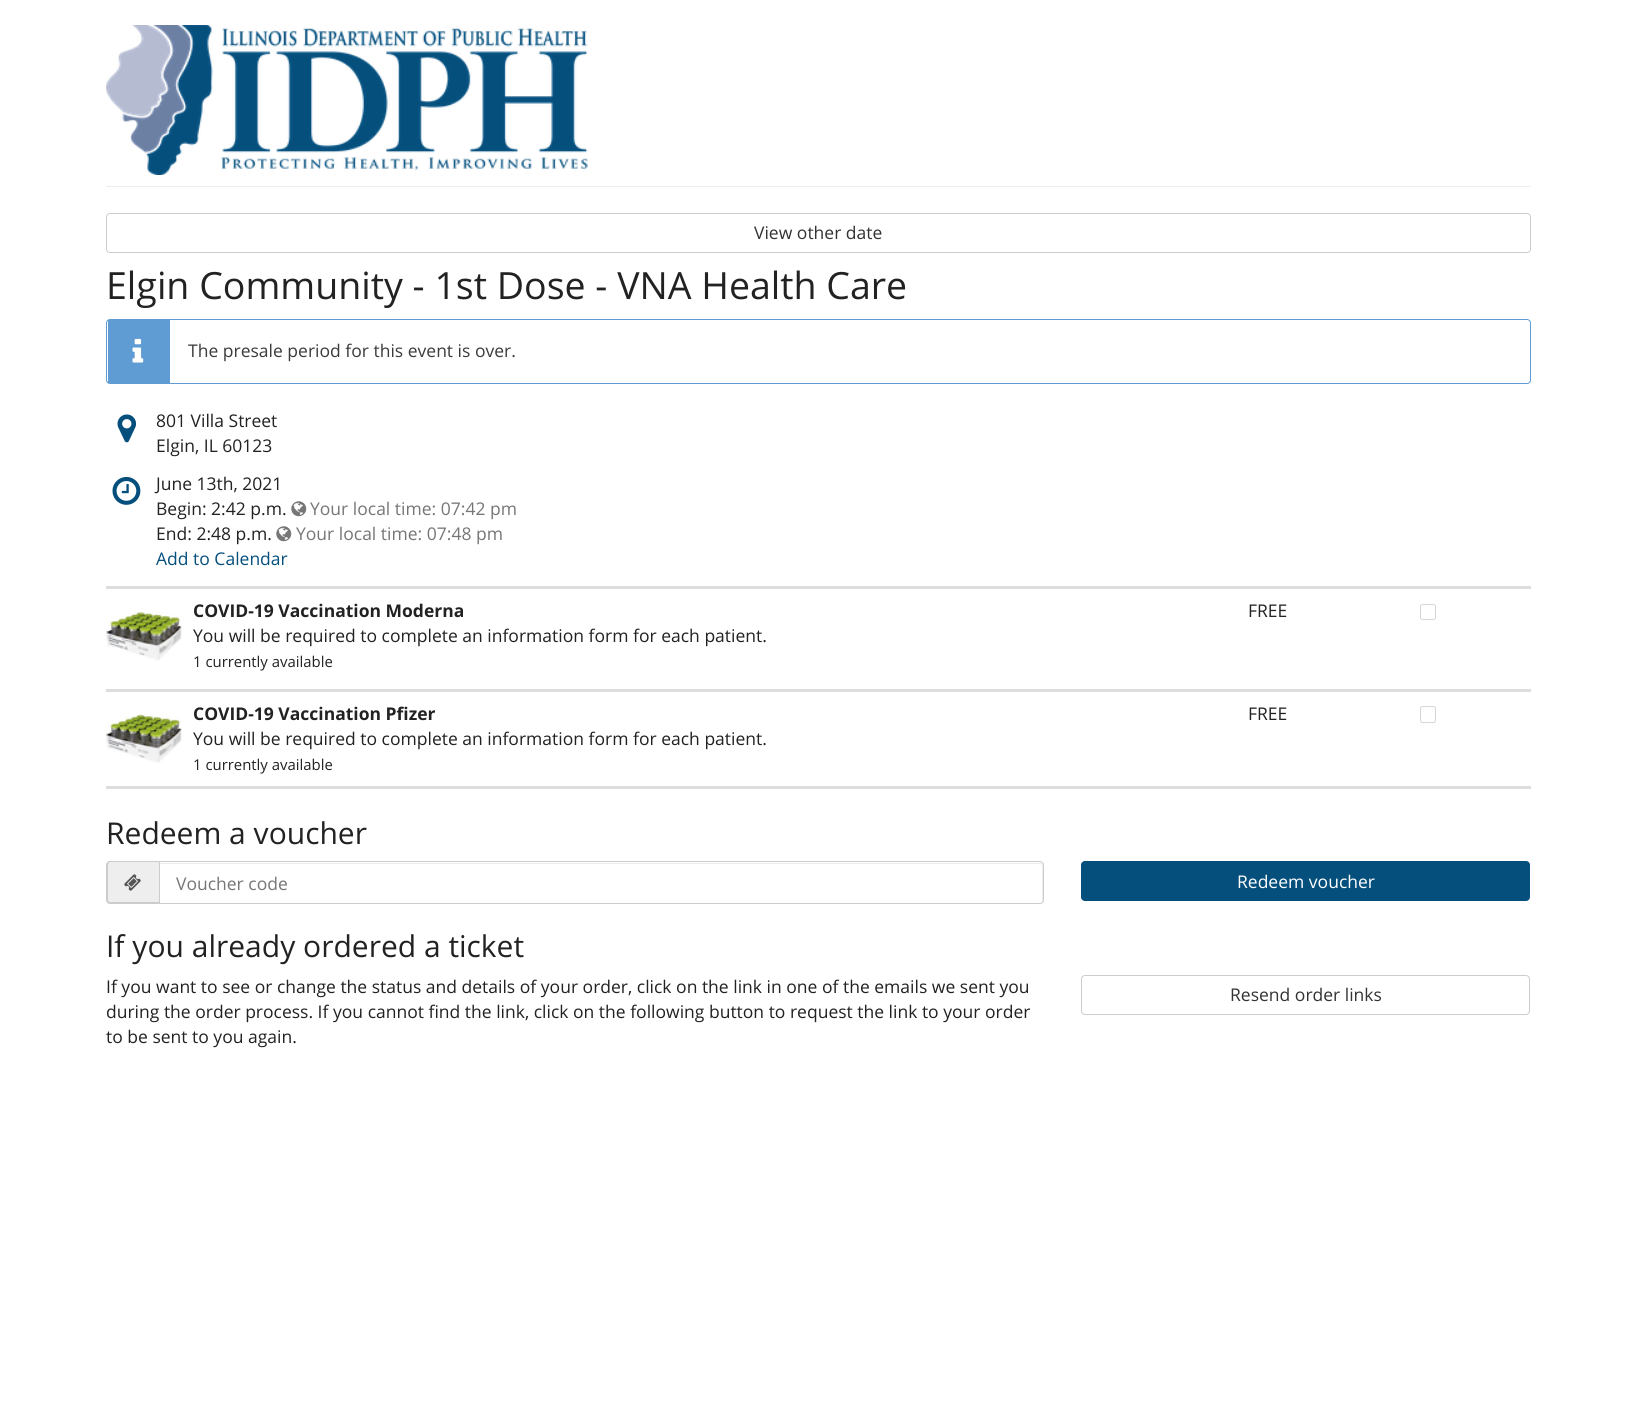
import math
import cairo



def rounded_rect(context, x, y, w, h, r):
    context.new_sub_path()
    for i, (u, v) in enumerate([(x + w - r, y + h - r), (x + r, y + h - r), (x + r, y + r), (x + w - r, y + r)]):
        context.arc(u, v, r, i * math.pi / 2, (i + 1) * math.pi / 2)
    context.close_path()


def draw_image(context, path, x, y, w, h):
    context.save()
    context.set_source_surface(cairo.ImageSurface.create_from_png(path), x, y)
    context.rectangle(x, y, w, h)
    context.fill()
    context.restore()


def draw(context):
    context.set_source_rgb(1, 1, 1)
    context.paint()
    context.set_source_rgb(238 / 255, 238 / 255, 238 / 255)
    context.rectangle(106, 186, 1425, 1)
    context.fill()
    draw_image(context, "images/1.png", 106, 25, 482, 150)
    rounded_rect(context, 106.5, 213.5, 1424, 39, 3.5)
    context.set_source_rgb(204 / 255, 204 / 255, 204 / 255)
    context.set_line_width(1)
    context.stroke()
    rounded_rect(context, 106.5, 319.5, 1424, 64, 3.5)
    context.set_source_rgb(95 / 255, 156 / 255, 212 / 255)
    context.stroke()
    context.rectangle(108, 320, 62, 63)
    context.fill()
    draw_image(context, "images/2.png", 132, 338, 12, 25)
    draw_image(context, "images/3.png", 117, 414, 20, 29)
    draw_image(context, "images/4.png", 112, 477, 29, 28)
    draw_image(context, "images/5.png", 291, 501, 16, 16)
    draw_image(context, "images/5.png", 276, 526, 16, 16)
    context.set_source_rgb(221 / 255, 221 / 255, 221 / 255)
    context.rectangle(106, 586, 1425, 3)
    context.fill()
    draw_image(context, "images/6.png", 106, 612, 76, 49)
    rounded_rect(context, 1420.5, 604.5, 15, 15, 2)
    context.set_source_rgb(214 / 255, 214 / 255, 214 / 255)
    context.stroke()
    context.set_source_rgb(221 / 255, 221 / 255, 221 / 255)
    context.rectangle(106, 689, 1425, 3)
    context.fill()
    draw_image(context, "images/7.png", 106, 714, 76, 49)
    rounded_rect(context, 1420.5, 706.5, 15, 16, 2)
    context.set_source_rgb(214 / 255, 214 / 255, 214 / 255)
    context.stroke()
    context.set_source_rgb(221 / 255, 221 / 255, 221 / 255)
    context.rectangle(106, 786, 1425, 3)
    context.fill()
    context.set_source_rgb(238 / 255, 238 / 255, 238 / 255)
    context.new_path()
    context.move_to(110, 861)
    context.line_to(159, 861)
    context.line_to(159, 904)
    context.line_to(110, 904)
    context.curve_to(108, 904, 106, 902, 106, 900)
    context.line_to(106, 865)
    context.curve_to(106, 863, 108, 861, 110, 861)
    context.close_path()
    context.fill()
    context.set_source_rgb(204 / 255, 204 / 255, 204 / 255)
    context.set_fill_rule(cairo.FillRule.EVEN_ODD)
    context.new_path()
    context.move_to(110, 861)
    context.line_to(159, 861)
    context.line_to(159, 904)
    context.line_to(110, 904)
    context.curve_to(108, 904, 106, 902, 106, 900)
    context.line_to(106, 865)
    context.curve_to(106, 863, 108, 861, 110, 861)
    context.close_path()
    context.move_to(110, 862)
    context.line_to(159, 862)
    context.line_to(159, 902)
    context.line_to(110, 902)
    context.curve_to(109, 902, 108, 901, 108, 900)
    context.line_to(108, 865)
    context.curve_to(108, 864, 109, 862, 110, 862)
    context.close_path()
    context.fill()
    draw_image(context, "images/8.png", 124, 874, 17, 17)
    context.set_source_rgb(236 / 255, 236 / 255, 236 / 255)
    context.set_fill_rule(cairo.FillRule.WINDING)
    context.new_path()
    context.move_to(160, 864)
    context.line_to(1040, 864)
    context.curve_to(1041, 864, 1042, 865, 1042, 866)
    context.line_to(1042, 903)
    context.line_to(1043, 901)
    context.line_to(1043, 865)
    context.curve_to(1043, 864, 1042, 863, 1041, 863)
    context.line_to(160, 863)
    context.close_path()
    context.fill()
    context.new_path()
    context.move_to(159.5, 861.5)
    context.line_to(1040, 861.5)
    context.curve_to(1042, 861.5, 1043.5, 863, 1043.5, 865)
    context.line_to(1043.5, 900)
    context.curve_to(1043.5, 902, 1042, 903.5, 1040, 903.5)
    context.line_to(159.5, 903.5)
    context.close_path()
    context.set_source_rgb(204 / 255, 204 / 255, 204 / 255)
    context.stroke()
    context.set_source_rgb(5 / 255, 79 / 255, 125 / 255)
    rounded_rect(context, 1081, 861, 449, 40, 4)
    context.fill()
    rounded_rect(context, 1081.5, 975.5, 448, 39, 3.5)
    context.set_source_rgb(204 / 255, 204 / 255, 204 / 255)
    context.stroke()
    context.select_font_face("Open Sans")
    context.set_font_size(17.5)
    context.set_source_rgb(51 / 255, 51 / 255, 51 / 255)
    context.move_to(754, 239)
    context.show_text("View other date")
    context.set_font_size(37.5)
    context.set_source_rgb(34 / 255, 34 / 255, 34 / 255)
    context.move_to(106, 299)
    context.show_text("Elgin Community - 1st Dose - VNA Health Care")
    context.set_font_size(17.5)
    context.set_source_rgb(59 / 255, 59 / 255, 59 / 255)
    context.move_to(188, 357)
    context.show_text("The presale period for this event is over.")
    context.set_source_rgb(34 / 255, 34 / 255, 34 / 255)
    context.move_to(156, 427)
    context.show_text("801 Villa Street")
    context.move_to(156, 452)
    context.show_text("Elgin, IL 60123")
    context.move_to(156, 490)
    context.show_text("June 13th, 2021")
    context.move_to(156, 515)
    context.show_text("Begin: 2:42 p.m.")
    context.set_source_rgb(118 / 255, 118 / 255, 118 / 255)
    context.move_to(310, 515)
    context.show_text("Your local time: 07:42 pm")
    context.set_source_rgb(34 / 255, 34 / 255, 34 / 255)
    context.move_to(156, 540)
    context.show_text("End: 2:48 p.m.")
    context.set_source_rgb(118 / 255, 118 / 255, 118 / 255)
    context.move_to(296, 540)
    context.show_text("Your local time: 07:48 pm")
    context.set_source_rgb(5 / 255, 79 / 255, 125 / 255)
    context.move_to(156, 565)
    context.show_text("Add to Calendar")
    context.select_font_face("Open Sans", cairo.FontSlant.NORMAL, cairo.FontWeight.BOLD)
    context.set_source_rgb(34 / 255, 34 / 255, 34 / 255)
    context.move_to(193, 617)
    context.show_text("COVID-19 Vaccination Moderna")
    context.select_font_face("Open Sans")
    context.move_to(193, 642)
    context.show_text("You will be required to complete an information form for each patient.")
    context.set_font_size(14.9)
    context.move_to(193, 667)
    context.show_text("1 currently available")
    context.set_font_size(17.5)
    context.move_to(1248, 617)
    context.show_text("FREE")
    context.select_font_face("Open Sans", cairo.FontSlant.NORMAL, cairo.FontWeight.BOLD)
    context.move_to(193, 720)
    context.show_text("COVID-19 Vaccination Pfizer")
    context.select_font_face("Open Sans")
    context.move_to(193, 745)
    context.show_text("You will be required to complete an information form for each patient.")
    context.set_font_size(14.9)
    context.move_to(193, 770)
    context.show_text("1 currently available")
    context.set_font_size(17.5)
    context.move_to(1248, 720)
    context.show_text("FREE")
    context.set_font_size(30)
    context.move_to(106, 844)
    context.show_text("Redeem a voucher")
    context.set_font_size(17.5)
    context.set_source_rgb(118 / 255, 118 / 255, 118 / 255)
    context.move_to(176, 890)
    context.show_text("Voucher code")
    context.set_source_rgb(1, 1, 1)
    context.move_to(1237, 888)
    context.show_text("Redeem voucher")
    context.set_font_size(30)
    context.set_source_rgb(34 / 255, 34 / 255, 34 / 255)
    context.move_to(106, 957)
    context.show_text("If you already ordered a ticket")
    context.set_font_size(17.5)
    context.move_to(106, 993)
    context.show_text("If you want to see or change the status and details of your order, click on the link in one of the emails we sent you")
    context.move_to(106, 1018)
    context.show_text("during the order process. If you cannot find the link, click on the following button to request the link to your order")
    context.move_to(106, 1043)
    context.show_text("to be sent to you again.")
    context.set_source_rgb(51 / 255, 51 / 255, 51 / 255)
    context.move_to(1230, 1001)
    context.show_text("Resend order links")


surface = cairo.ImageSurface(cairo.Format.RGB24, 1636, 1420)
context = cairo.Context(surface)
options = cairo.FontOptions()
options.set_hint_metrics(cairo.HintMetrics.OFF)
options.set_hint_style(cairo.HintStyle.NONE)
context.set_font_options(options)
context.set_miter_limit(4)
draw(context)
surface.write_to_png("out.png")
